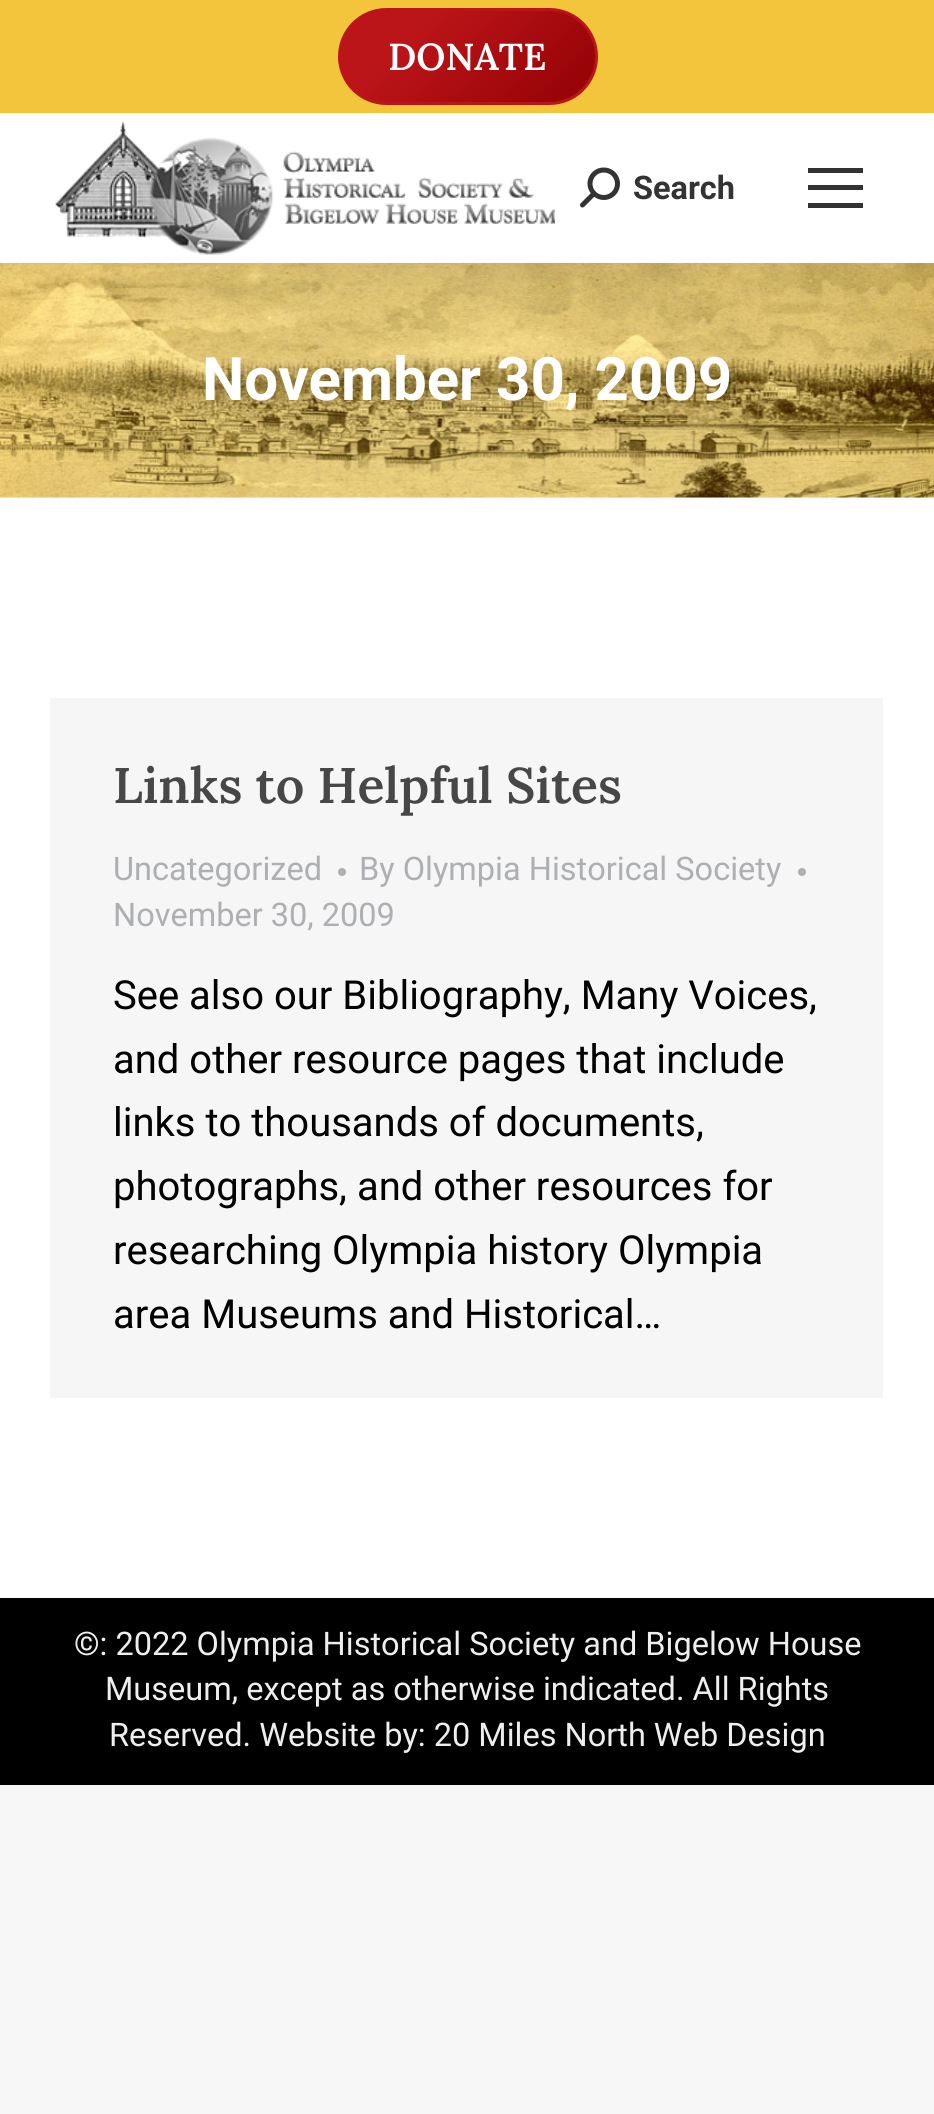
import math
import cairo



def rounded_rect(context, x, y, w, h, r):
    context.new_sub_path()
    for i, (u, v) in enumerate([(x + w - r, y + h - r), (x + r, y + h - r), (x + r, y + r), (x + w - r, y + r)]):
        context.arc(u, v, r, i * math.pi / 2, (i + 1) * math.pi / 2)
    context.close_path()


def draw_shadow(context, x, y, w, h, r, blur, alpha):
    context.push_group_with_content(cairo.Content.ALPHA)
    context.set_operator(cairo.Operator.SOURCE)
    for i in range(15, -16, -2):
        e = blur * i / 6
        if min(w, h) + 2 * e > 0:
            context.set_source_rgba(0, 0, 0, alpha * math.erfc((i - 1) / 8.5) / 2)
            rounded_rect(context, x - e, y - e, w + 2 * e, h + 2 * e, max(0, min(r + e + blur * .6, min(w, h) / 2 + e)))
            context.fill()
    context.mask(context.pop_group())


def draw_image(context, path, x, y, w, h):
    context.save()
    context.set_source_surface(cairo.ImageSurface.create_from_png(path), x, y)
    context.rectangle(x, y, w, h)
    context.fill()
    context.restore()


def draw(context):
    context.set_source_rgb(247 / 255, 247 / 255, 247 / 255)
    context.paint()
    context.set_source_rgb(1, 1, 1)
    context.rectangle(0, 498, 934, 1100)
    context.fill()
    draw_image(context, "images/3.png", 0, 263, 934, 235)
    context.set_source_rgb(0, 0, 0)
    draw_shadow(context, -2, -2, 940, 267, 0, 19, 0.07)
    context.set_source_rgb(1, 1, 1)
    context.rectangle(0, 113, 934, 150)
    context.fill()
    context.set_source_rgb(243 / 255, 197 / 255, 59 / 255)
    context.rectangle(0, 0, 934, 113)
    context.fill()
    gradient = cairo.LinearGradient(378, -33, 557, 146)
    gradient.add_color_stop_rgba(0.28, 187 / 255, 21 / 255, 25 / 255, 1)
    gradient.add_color_stop_rgba(1, 145 / 255, 0, 4 / 255, 1)
    context.set_source(gradient)
    rounded_rect(context, 339.5, 9.5, 257, 94, 47)
    context.fill_preserve()
    context.set_source_rgb(187 / 255, 21 / 255, 25 / 255)
    context.set_line_width(3)
    context.stroke()
    draw_image(context, "images/1.png", 55, 121, 500, 134)
    draw_image(context, "images/2.png", 580, 167, 40, 41)
    context.set_source_rgb(51 / 255, 51 / 255, 51 / 255)
    context.rectangle(808, 168, 55, 5)
    context.fill()
    context.rectangle(808, 185, 55, 5)
    context.fill()
    context.rectangle(808, 203, 55, 5)
    context.fill()
    context.set_source_rgb(246 / 255, 246 / 255, 246 / 255)
    context.rectangle(50, 698, 833, 700)
    context.fill()
    context.set_source_rgb(173 / 255, 175 / 255, 179 / 255)
    context.arc(342, 872, 4, 0, 2 * math.pi)
    context.fill()
    context.arc(802, 872, 4, 0, 2 * math.pi)
    context.fill()
    context.set_source_rgb(0, 0, 0)
    context.rectangle(0, 1598, 934, 187)
    context.fill()
    context.select_font_face("Lora SemiBold")
    context.set_font_size(37.5)
    context.set_source_rgb(1, 1, 1)
    context.move_to(388, 70)
    context.show_text("DONATE")
    context.select_font_face("Roboto", cairo.FontSlant.NORMAL, cairo.FontWeight.BOLD)
    context.set_font_size(32.5)
    context.set_source_rgb(51 / 255, 51 / 255, 51 / 255)
    context.move_to(633, 199)
    context.show_text("Search")
    context.set_font_size(60)
    context.set_source_rgb(1, 1, 1)
    context.move_to(202, 400)
    context.show_text("November 30, 2009")
    context.select_font_face("Lora SemiBold")
    context.set_font_size(50)
    context.set_source_rgb(71 / 255, 71 / 255, 71 / 255)
    context.move_to(113, 803)
    context.show_text("Links to Helpful Sites")
    context.select_font_face("Roboto")
    context.set_font_size(32.5)
    context.set_source_rgb(173 / 255, 175 / 255, 179 / 255)
    context.move_to(113, 880)
    context.show_text("Uncategorized")
    context.move_to(359, 880)
    context.show_text("By Olympia Historical Society")
    context.move_to(113, 926)
    context.show_text("November 30, 2009")
    context.set_font_size(40)
    context.set_source_rgb(0, 0, 0)
    context.move_to(113, 1009)
    context.show_text("See also our Bibliography, Many Voices,")
    context.move_to(113, 1073)
    context.show_text("and other resource pages that include")
    context.move_to(113, 1136)
    context.show_text("links to thousands of documents,")
    context.move_to(113, 1200)
    context.show_text("photographs, and other resources for")
    context.move_to(113, 1264)
    context.show_text("researching Olympia history Olympia")
    context.move_to(113, 1328)
    context.show_text("area Museums and Historical…")
    context.set_font_size(32.5)
    context.set_source_rgb(238 / 255, 238 / 255, 238 / 255)
    context.move_to(74, 1655)
    context.show_text("©: 2022 Olympia Historical Society and Bigelow House")
    context.move_to(105, 1700)
    context.show_text("Museum, except as otherwise indicated. All Rights")
    context.move_to(109, 1746)
    context.show_text("Reserved. Website by: 20 Miles North Web Design")


surface = cairo.ImageSurface(cairo.Format.RGB24, 934, 2114)
context = cairo.Context(surface)
options = cairo.FontOptions()
options.set_hint_metrics(cairo.HintMetrics.OFF)
options.set_hint_style(cairo.HintStyle.NONE)
context.set_font_options(options)
context.set_miter_limit(4)
draw(context)
surface.write_to_png("out.png")
